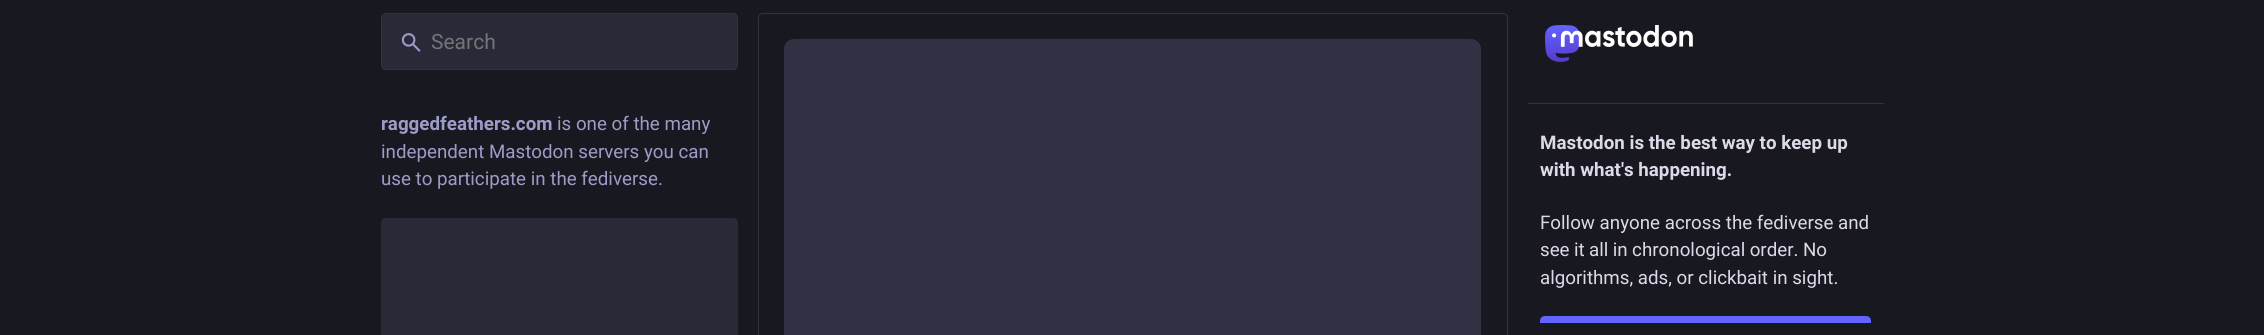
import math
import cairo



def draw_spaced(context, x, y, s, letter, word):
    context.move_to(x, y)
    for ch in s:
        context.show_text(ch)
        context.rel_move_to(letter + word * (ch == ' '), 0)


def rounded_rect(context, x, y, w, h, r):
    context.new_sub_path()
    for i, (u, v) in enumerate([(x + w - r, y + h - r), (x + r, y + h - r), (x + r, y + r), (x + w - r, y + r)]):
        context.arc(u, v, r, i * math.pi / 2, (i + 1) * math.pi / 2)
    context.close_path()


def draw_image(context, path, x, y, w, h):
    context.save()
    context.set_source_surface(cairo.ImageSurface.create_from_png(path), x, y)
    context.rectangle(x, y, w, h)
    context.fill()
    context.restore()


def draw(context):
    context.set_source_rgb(24 / 255, 24 / 255, 33 / 255)
    context.paint()
    context.set_source_rgb(41 / 255, 41 / 255, 56 / 255)
    rounded_rect(context, 381.5, 13.5, 356, 56, 4.5)
    context.fill_preserve()
    context.set_source_rgb(49 / 255, 49 / 255, 68 / 255)
    context.set_line_width(1)
    context.stroke()
    draw_image(context, "images/1.png", 401, 33, 20, 19)
    context.set_source_rgb(41 / 255, 41 / 255, 56 / 255)
    context.new_path()
    context.move_to(386, 218)
    context.line_to(733, 218)
    context.curve_to(736, 218, 738, 220, 738, 223)
    context.line_to(738, 335)
    context.line_to(381, 335)
    context.line_to(381, 223)
    context.curve_to(381, 220, 383, 218, 386, 218)
    context.close_path()
    context.fill()
    rounded_rect(context, 758.5, 13.5, 749, 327, 4.5)
    context.set_source_rgb(49 / 255, 49 / 255, 68 / 255)
    context.stroke()
    rounded_rect(context, 784, 39, 697, 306, 10)
    context.fill()
    draw_image(context, "images/2.png", 1545, 25, 148, 37)
    context.rectangle(1528, 103, 356, 1)
    context.fill()
    context.set_source_rgb(99 / 255, 100 / 255, 1)
    context.new_path()
    context.move_to(1545, 316)
    context.line_to(1866, 316)
    context.curve_to(1869, 316, 1871, 318, 1871, 321)
    context.line_to(1871, 323)
    context.line_to(1540, 323)
    context.line_to(1540, 321)
    context.curve_to(1540, 318, 1542, 316, 1545, 316)
    context.close_path()
    context.fill()
    context.select_font_face("Roboto")
    context.set_font_size(21)
    context.set_source_rgb(117 / 255, 117 / 255, 117 / 255)
    context.move_to(431, 49)
    context.show_text("Search")
    context.select_font_face("Roboto", cairo.FontSlant.NORMAL, cairo.FontWeight.BOLD)
    context.set_font_size(18.75)
    context.set_source_rgb(156 / 255, 156 / 255, 201 / 255)
    context.move_to(381, 130)
    context.show_text("raggedfeathers.com")
    context.select_font_face("Roboto")
    context.move_to(557, 130)
    context.show_text("is one of the many")
    context.move_to(381, 158)
    context.show_text("independent Mastodon servers you can")
    context.move_to(381, 185)
    context.show_text("use to participate in the fediverse.")
    context.select_font_face("Roboto", cairo.FontSlant.NORMAL, cairo.FontWeight.BOLD)
    context.set_source_rgb(221 / 255, 217 / 255, 232 / 255)
    context.move_to(1540, 149)
    context.show_text("Mastodon is the best way to keep up")
    context.move_to(1540, 176)
    context.show_text("with what's happening.")
    context.select_font_face("Roboto")
    context.move_to(1540, 229)
    context.show_text("Follow anyone across the fediverse and")
    draw_spaced(context, 1540, 256, "see it all in chronological order. No", 0, -0.25)
    context.move_to(1540, 284)
    context.show_text("algorithms, ads, or clickbait in sight.")


surface = cairo.ImageSurface(cairo.Format.RGB24, 2264, 335)
context = cairo.Context(surface)
options = cairo.FontOptions()
options.set_hint_metrics(cairo.HintMetrics.OFF)
options.set_hint_style(cairo.HintStyle.NONE)
context.set_font_options(options)
context.set_miter_limit(4)
draw(context)
surface.write_to_png("out.png")
